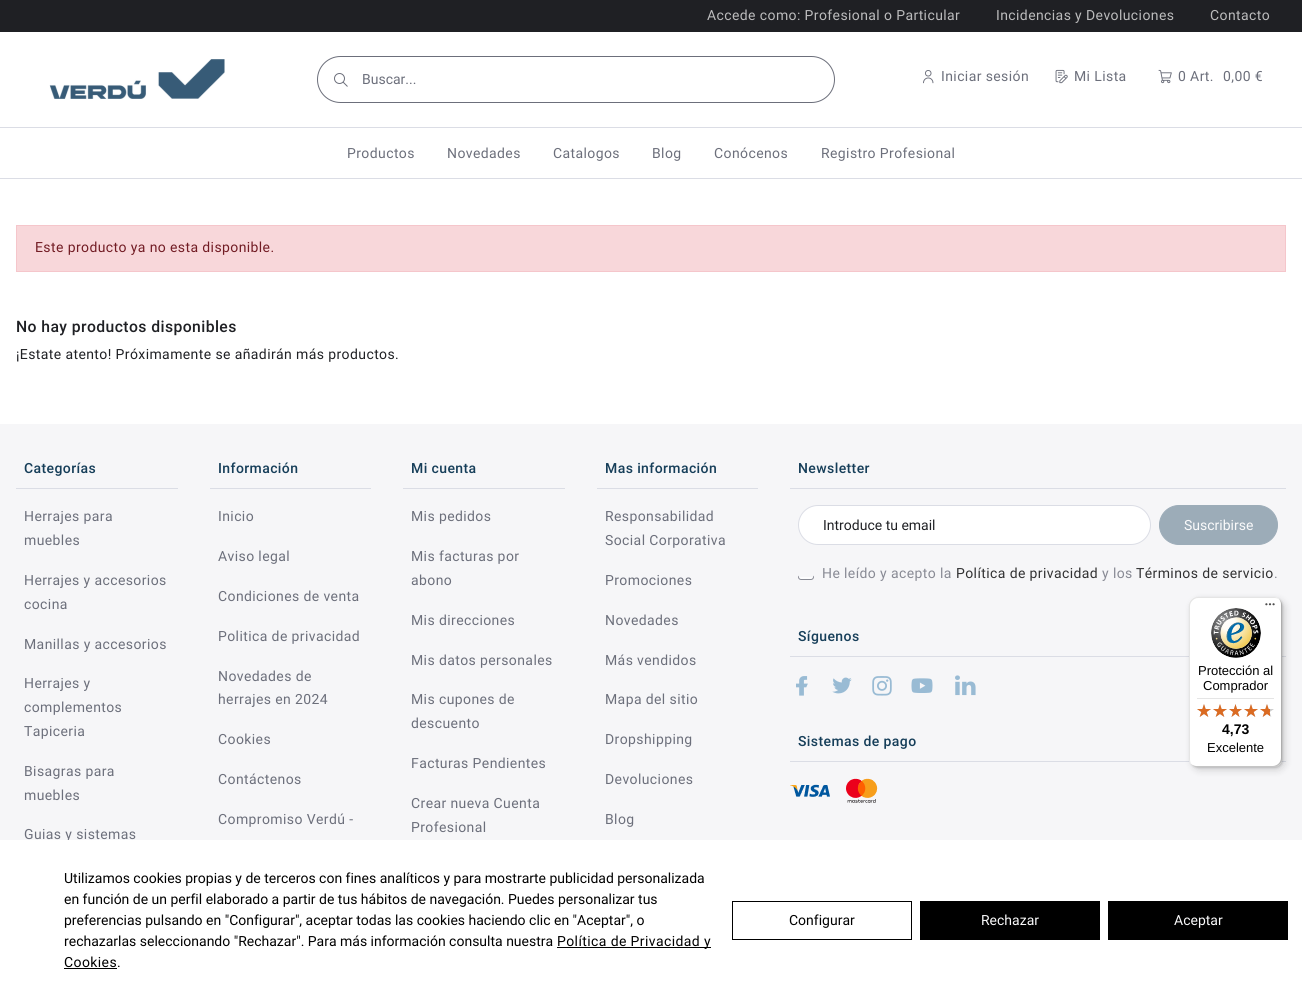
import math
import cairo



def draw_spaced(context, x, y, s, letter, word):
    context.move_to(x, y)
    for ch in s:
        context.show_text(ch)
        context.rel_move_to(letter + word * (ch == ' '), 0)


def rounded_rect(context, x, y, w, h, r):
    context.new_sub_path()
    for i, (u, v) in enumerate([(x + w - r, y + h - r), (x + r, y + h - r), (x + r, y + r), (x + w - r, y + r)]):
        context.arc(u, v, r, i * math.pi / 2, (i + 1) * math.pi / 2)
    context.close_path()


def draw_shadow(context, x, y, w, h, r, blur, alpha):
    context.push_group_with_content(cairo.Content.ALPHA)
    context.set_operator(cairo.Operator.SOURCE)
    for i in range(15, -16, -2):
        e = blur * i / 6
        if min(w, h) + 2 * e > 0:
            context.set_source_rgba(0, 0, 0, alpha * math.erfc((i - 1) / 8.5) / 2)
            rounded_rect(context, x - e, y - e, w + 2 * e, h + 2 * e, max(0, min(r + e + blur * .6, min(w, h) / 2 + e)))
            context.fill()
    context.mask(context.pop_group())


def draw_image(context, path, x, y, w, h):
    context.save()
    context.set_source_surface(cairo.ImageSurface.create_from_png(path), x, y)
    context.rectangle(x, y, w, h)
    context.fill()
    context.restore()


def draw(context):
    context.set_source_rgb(1, 1, 1)
    context.paint()
    context.set_source_rgb(31 / 255, 32 / 255, 36 / 255)
    context.rectangle(0, 0, 1302, 32)
    context.fill()
    context.set_source_rgb(219 / 255, 221 / 255, 229 / 255)
    context.rectangle(0, 127, 1302, 1)
    context.fill()
    draw_image(context, "images/1.png", 49, 59, 176, 40)
    rounded_rect(context, 317.5, 56.5, 517, 46, 23)
    context.set_source_rgb(108 / 255, 111 / 255, 123 / 255)
    context.set_line_width(1)
    context.stroke()
    draw_image(context, "images/2.png", 334, 73, 14, 14)
    draw_image(context, "images/3.png", 923, 70, 11, 14)
    draw_image(context, "images/4.png", 1055, 69, 13, 15)
    draw_image(context, "images/5.png", 1158, 69, 14, 15)
    context.set_source_rgb(219 / 255, 221 / 255, 229 / 255)
    context.rectangle(0, 178, 1302, 1)
    context.fill()
    context.set_source_rgb(248 / 255, 215 / 255, 218 / 255)
    context.rectangle(16.5, 225.5, 1269, 46)
    context.fill_preserve()
    context.set_source_rgb(245 / 255, 198 / 255, 203 / 255)
    context.stroke()
    context.set_source_rgb(246 / 255, 246 / 255, 248 / 255)
    context.rectangle(0, 424, 1302, 416)
    context.fill()
    context.set_source_rgb(219 / 255, 221 / 255, 229 / 255)
    context.rectangle(16, 488, 162, 1)
    context.fill()
    context.rectangle(210, 488, 161, 1)
    context.fill()
    context.rectangle(403, 488, 162, 1)
    context.fill()
    context.rectangle(597, 488, 161, 1)
    context.fill()
    context.rectangle(790, 488, 496, 1)
    context.fill()
    context.set_source_rgb(1, 1, 1)
    rounded_rect(context, 798.5, 505.5, 352, 39, 19.5)
    context.fill_preserve()
    context.set_source_rgb(219 / 255, 221 / 255, 229 / 255)
    context.stroke()
    context.set_source_rgb(156 / 255, 172 / 255, 184 / 255)
    rounded_rect(context, 1159.5, 505.5, 118, 39, 19.5)
    context.fill_preserve()
    context.stroke()
    context.set_source_rgb(253 / 255, 253 / 255, 254 / 255)
    rounded_rect(context, 798.5, 564.5, 15, 15, 2.5)
    context.fill_preserve()
    context.set_source_rgb(136 / 255, 138 / 255, 148 / 255)
    context.stroke()
    context.set_source_rgb(246 / 255, 246 / 255, 248 / 255)
    rounded_rect(context, 798.5, 561.5, 15, 15, 1.5)
    context.fill_preserve()
    context.stroke()
    context.set_source_rgb(219 / 255, 221 / 255, 229 / 255)
    context.rectangle(790, 656, 496, 1)
    context.fill()
    draw_image(context, "images/6.png", 796, 676, 12, 20)
    draw_image(context, "images/7.png", 832, 677, 20, 17)
    draw_image(context, "images/8.png", 872, 676, 20, 20)
    draw_image(context, "images/9.png", 911, 678, 22, 15)
    draw_image(context, "images/10.png", 955, 675, 21, 21)
    context.rectangle(790, 761, 496, 1)
    context.fill()
    draw_image(context, "images/11.png", 790, 778, 88, 25)
    context.set_source_rgb(0, 0, 0)
    draw_shadow(context, 1192, 600, 93, 170, 8, 4, 0.15)
    draw_shadow(context, 1190, 598, 93, 170, 8, 1, 0.15)
    context.set_source_rgb(1, 1, 1)
    rounded_rect(context, 1189, 597, 93, 170, 8)
    context.fill()
    context.set_source_rgb(229 / 255, 229 / 255, 229 / 255)
    context.new_path()
    context.move_to(1198, 598)
    context.line_to(1275, 598)
    context.curve_to(1277, 598, 1279, 599, 1281, 601)
    context.curve_to(1279, 599, 1277, 597, 1274, 597)
    context.line_to(1197, 597)
    context.curve_to(1193, 597, 1189, 601, 1189, 605)
    context.line_to(1189, 759)
    context.curve_to(1189, 762, 1191, 764, 1193, 766)
    context.curve_to(1191, 764, 1190, 762, 1190, 760)
    context.line_to(1190, 606)
    context.curve_to(1190, 602, 1194, 598, 1198, 598)
    context.close_path()
    context.fill()
    context.set_source_rgba(0, 0, 0, 0.2)
    context.new_path()
    context.move_to(1190, 763)
    context.curve_to(1192, 765, 1194, 767, 1197, 767)
    context.line_to(1274, 767)
    context.curve_to(1278, 767, 1282, 763, 1282, 759)
    context.line_to(1282, 605)
    context.curve_to(1282, 602, 1280, 600, 1278, 598)
    context.curve_to(1280, 600, 1281, 602, 1281, 604)
    context.line_to(1281, 758)
    context.curve_to(1281, 762, 1277, 766, 1273, 766)
    context.line_to(1196, 766)
    context.curve_to(1194, 766, 1192, 765, 1190, 763)
    context.close_path()
    context.fill()
    context.set_source_rgba(50 / 255, 50 / 255, 50 / 255, 0.2)
    context.new_path()
    context.move_to(1191, 764)
    context.curve_to(1192, 766, 1195, 767, 1197, 767)
    context.line_to(1274, 767)
    context.curve_to(1278, 767, 1282, 763, 1282, 759)
    context.line_to(1282, 605)
    context.curve_to(1282, 603, 1281, 600, 1279, 599)
    context.curve_to(1280, 600, 1281, 602, 1281, 604)
    context.line_to(1281, 758)
    context.curve_to(1281, 763, 1278, 766, 1273, 766)
    context.line_to(1196, 766)
    context.curve_to(1194, 766, 1192, 765, 1191, 764)
    context.close_path()
    context.fill()
    draw_image(context, "images/12.png", 1265, 603, 10, 3)
    context.set_source_rgba(1, 1, 1, 0.3)
    context.new_path()
    context.move_to(1191, 764)
    context.curve_to(1192, 766, 1195, 767, 1197, 767)
    context.line_to(1274, 767)
    context.curve_to(1278, 767, 1282, 763, 1282, 759)
    context.line_to(1282, 758)
    context.curve_to(1282, 763, 1278, 766, 1274, 766)
    context.line_to(1196, 766)
    context.curve_to(1194, 766, 1192, 765, 1191, 764)
    context.close_path()
    context.fill()
    draw_image(context, "images/13.png", 1211, 608, 50, 50)
    context.set_source_rgb(229 / 255, 229 / 255, 229 / 255)
    context.rectangle(1197, 698, 77, 1)
    context.fill()
    draw_image(context, "images/14.png", 1197, 704, 14, 13)
    draw_image(context, "images/14.png", 1213, 704, 14, 13)
    draw_image(context, "images/15.png", 1229, 704, 13, 13)
    draw_image(context, "images/14.png", 1244, 704, 14, 13)
    draw_image(context, "images/14.png", 1260, 704, 14, 13)
    draw_image(context, "images/16.png", 1197, 704, 14, 13)
    draw_image(context, "images/16.png", 1213, 704, 14, 13)
    draw_image(context, "images/17.png", 1229, 704, 13, 13)
    draw_image(context, "images/16.png", 1244, 704, 14, 13)
    draw_image(context, "images/18.png", 1260, 704, 10, 13)
    context.set_source_rgb(0, 0, 0)
    context.rectangle(557, 947, 154, 1)
    context.fill()
    context.rectangle(64, 968, 53, 1)
    context.fill()
    context.rectangle(732.5, 901.5, 179, 38)
    context.stroke()
    context.rectangle(920, 901, 180, 39)
    context.fill()
    context.rectangle(1108, 901, 180, 39)
    context.fill()
    context.select_font_face("Roboto")
    context.set_font_size(14)
    context.set_source_rgb(188 / 255, 188 / 255, 189 / 255)
    draw_spaced(context, 707, 20, "Accede como: Profesional o Particular", 0.4, 0)
    draw_spaced(context, 996, 20, "Incidencias y Devoluciones", 0.4, 0)
    draw_spaced(context, 1210, 20, "Contacto", 0.4, 0)
    context.set_source_rgb(108 / 255, 111 / 255, 123 / 255)
    context.move_to(362, 84)
    context.show_text("Buscar...")
    draw_spaced(context, 941, 81, "Iniciar sesión", 0.4, 0)
    draw_spaced(context, 1074, 81, "Mi Lista", 0.4, 0)
    draw_spaced(context, 1178, 81, "0 Art.", 0.4, 0)
    draw_spaced(context, 1223, 81, "0,00 €", 0.4, 0)
    draw_spaced(context, 347, 158, "Productos", 0.4, 0)
    draw_spaced(context, 447, 158, "Novedades", 0.4, 0)
    draw_spaced(context, 553, 158, "Catalogos", 0.4, 0)
    draw_spaced(context, 652, 158, "Blog", 0.4, 0)
    draw_spaced(context, 714, 158, "Conócenos", 0.4, 0)
    draw_spaced(context, 821, 158, "Registro Profesional", 0.4, 0)
    context.set_source_rgb(114 / 255, 28 / 255, 36 / 255)
    draw_spaced(context, 35, 252, "Este producto ya no esta disponible.", 0.4, 0)
    context.select_font_face("Roboto Medium")
    context.set_font_size(15.75)
    context.set_source_rgb(31 / 255, 32 / 255, 36 / 255)
    draw_spaced(context, 16, 332, "No hay productos disponibles", 0.4, 0)
    context.select_font_face("Roboto")
    context.set_font_size(14)
    draw_spaced(context, 16, 359, "¡Estate atento! Próximamente se añadirán más productos.", 0.4, 0)
    context.select_font_face("Roboto Medium")
    context.set_source_rgb(22 / 255, 62 / 255, 89 / 255)
    draw_spaced(context, 24, 473, "Categorías", 0.4, 0)
    context.select_font_face("Roboto")
    context.set_source_rgb(108 / 255, 111 / 255, 123 / 255)
    draw_spaced(context, 24, 521, "Herrajes para", 0.4, 0)
    draw_spaced(context, 24, 545, "muebles", 0.4, 0)
    draw_spaced(context, 24, 585, "Herrajes y accesorios", 0.4, 0)
    draw_spaced(context, 24, 609, "cocina", 0.4, 0)
    draw_spaced(context, 24, 649, "Manillas y accesorios", 0.4, 0)
    draw_spaced(context, 24, 688, "Herrajes y", 0.4, 0)
    draw_spaced(context, 24, 712, "complementos", 0.4, 0)
    draw_spaced(context, 24, 736, "Tapiceria", 0.4, 0)
    draw_spaced(context, 24, 776, "Bisagras para", 0.4, 0)
    draw_spaced(context, 24, 800, "muebles", 0.4, 0)
    draw_spaced(context, 24, 839, "Guias y sistemas", 0.4, 0)
    context.select_font_face("Roboto Medium")
    context.set_source_rgb(22 / 255, 62 / 255, 89 / 255)
    draw_spaced(context, 218, 473, "Información", 0.4, 0)
    context.select_font_face("Roboto")
    context.set_source_rgb(108 / 255, 111 / 255, 123 / 255)
    draw_spaced(context, 218, 521, "Inicio", 0.4, 0)
    draw_spaced(context, 218, 561, "Aviso legal", 0.4, 0)
    draw_spaced(context, 218, 601, "Condiciones de venta", 0.4, 0)
    draw_spaced(context, 218, 641, "Politica de privacidad", 0.4, 0)
    draw_spaced(context, 218, 681, "Novedades de", 0.4, 0)
    draw_spaced(context, 218, 704, "herrajes en 2024", 0.4, 0)
    draw_spaced(context, 218, 744, "Cookies", 0.4, 0)
    draw_spaced(context, 218, 784, "Contáctenos", 0.4, 0)
    draw_spaced(context, 218, 824, "Compromiso Verdú -", 0.4, 0)
    context.select_font_face("Roboto Medium")
    context.set_source_rgb(22 / 255, 62 / 255, 89 / 255)
    draw_spaced(context, 411, 473, "Mi cuenta", 0.4, 0)
    context.select_font_face("Roboto")
    context.set_source_rgb(108 / 255, 111 / 255, 123 / 255)
    draw_spaced(context, 411, 521, "Mis pedidos", 0.4, 0)
    draw_spaced(context, 411, 561, "Mis facturas por", 0.4, 0)
    draw_spaced(context, 411, 585, "abono", 0.4, 0)
    draw_spaced(context, 411, 625, "Mis direcciones", 0.4, 0)
    draw_spaced(context, 411, 665, "Mis datos personales", 0.4, 0)
    draw_spaced(context, 411, 704, "Mis cupones de", 0.4, 0)
    draw_spaced(context, 411, 728, "descuento", 0.4, 0)
    draw_spaced(context, 411, 768, "Facturas Pendientes", 0.4, 0)
    draw_spaced(context, 411, 808, "Crear nueva Cuenta", 0.4, 0)
    draw_spaced(context, 411, 832, "Profesional", 0.4, 0)
    context.select_font_face("Roboto Medium")
    context.set_source_rgb(22 / 255, 62 / 255, 89 / 255)
    draw_spaced(context, 605, 473, "Mas información", 0.4, 0)
    context.select_font_face("Roboto")
    context.set_source_rgb(108 / 255, 111 / 255, 123 / 255)
    draw_spaced(context, 605, 521, "Responsabilidad", 0.4, 0)
    draw_spaced(context, 605, 545, "Social Corporativa", 0.4, 0)
    draw_spaced(context, 605, 585, "Promociones", 0.4, 0)
    draw_spaced(context, 605, 625, "Novedades", 0.4, 0)
    draw_spaced(context, 605, 665, "Más vendidos", 0.4, 0)
    draw_spaced(context, 605, 704, "Mapa del sitio", 0.4, 0)
    draw_spaced(context, 605, 744, "Dropshipping", 0.4, 0)
    draw_spaced(context, 605, 784, "Devoluciones", 0.4, 0)
    draw_spaced(context, 605, 824, "Blog", 0.4, 0)
    context.select_font_face("Roboto Medium")
    context.set_source_rgb(22 / 255, 62 / 255, 89 / 255)
    draw_spaced(context, 798, 473, "Newsletter", 0.4, 0)
    context.select_font_face("Roboto")
    context.set_source_rgb(31 / 255, 32 / 255, 36 / 255)
    context.move_to(823, 530)
    context.show_text("Introduce tu email")
    context.set_source_rgb(250 / 255, 250 / 255, 251 / 255)
    context.move_to(1184, 530)
    context.show_text("Suscribirse")
    context.set_source_rgb(136 / 255, 138 / 255, 148 / 255)
    draw_spaced(context, 822, 578, "He leído y acepto la", 0.4, 0)
    context.set_source_rgb(49 / 255, 49 / 255, 50 / 255)
    draw_spaced(context, 956, 578, "Política de privacidad", 0.4, 0)
    context.set_source_rgb(136 / 255, 138 / 255, 148 / 255)
    draw_spaced(context, 1102, 578, "y los", 0.4, 0)
    context.set_source_rgb(49 / 255, 49 / 255, 50 / 255)
    draw_spaced(context, 1136, 578, "Términos de servicio", 0.4, 0)
    context.set_source_rgb(136 / 255, 138 / 255, 148 / 255)
    draw_spaced(context, 1274, 578, ".", 0.4, 0)
    context.select_font_face("Roboto Medium")
    context.set_source_rgb(22 / 255, 62 / 255, 89 / 255)
    draw_spaced(context, 798, 641, "Síguenos", 0.4, 0)
    draw_spaced(context, 798, 746, "Sistemas de pago", 0.4, 0)
    context.select_font_face("Liberation Sans")
    context.set_font_size(13)
    context.set_source_rgb(0, 0, 0)
    context.move_to(1198, 675)
    context.show_text("Protección al")
    context.move_to(1203, 690)
    context.show_text("Comprador")
    context.select_font_face("Liberation Sans", cairo.FontSlant.NORMAL, cairo.FontWeight.BOLD)
    context.set_font_size(14)
    context.move_to(1222, 734)
    context.show_text("4,73")
    context.select_font_face("Liberation Sans")
    context.set_font_size(13)
    context.move_to(1207, 752)
    context.show_text("Excelente")
    context.set_source_rgb(1, 1, 1)
    context.rectangle(65, 840, 4, 2)
    context.fill()
    context.select_font_face("Roboto")
    context.set_font_size(14)
    context.set_source_rgb(0, 0, 0)
    context.move_to(64, 883)
    context.show_text("Utilizamos cookies propias y de terceros con fines analíticos y para mostrarte publicidad personalizada")
    context.move_to(64, 904)
    context.show_text("en función de un perfil elaborado a partir de tus hábitos de navegación. Puedes personalizar tus")
    context.move_to(64, 925)
    context.show_text("preferencias pulsando en \"Configurar\", aceptar todas las cookies haciendo clic en \"Aceptar\", o")
    context.move_to(64, 946)
    context.show_text("rechazarlas seleccionando \"Rechazar\". Para más información consulta nuestra")
    draw_spaced(context, 557, 946, "Política de Privacidad y", 0.4, 0)
    draw_spaced(context, 64, 967, "Cookies", 0.4, 0)
    context.move_to(117, 967)
    context.show_text(".")
    context.move_to(789, 925)
    context.show_text("Configurar")
    context.set_source_rgb(250 / 255, 250 / 255, 251 / 255)
    context.move_to(981, 925)
    context.show_text("Rechazar")
    context.move_to(1174, 925)
    context.show_text("Aceptar")


surface = cairo.ImageSurface(cairo.Format.RGB24, 1302, 1001)
context = cairo.Context(surface)
options = cairo.FontOptions()
options.set_hint_metrics(cairo.HintMetrics.OFF)
options.set_hint_style(cairo.HintStyle.NONE)
context.set_font_options(options)
context.set_miter_limit(4)
draw(context)
surface.write_to_png("out.png")
